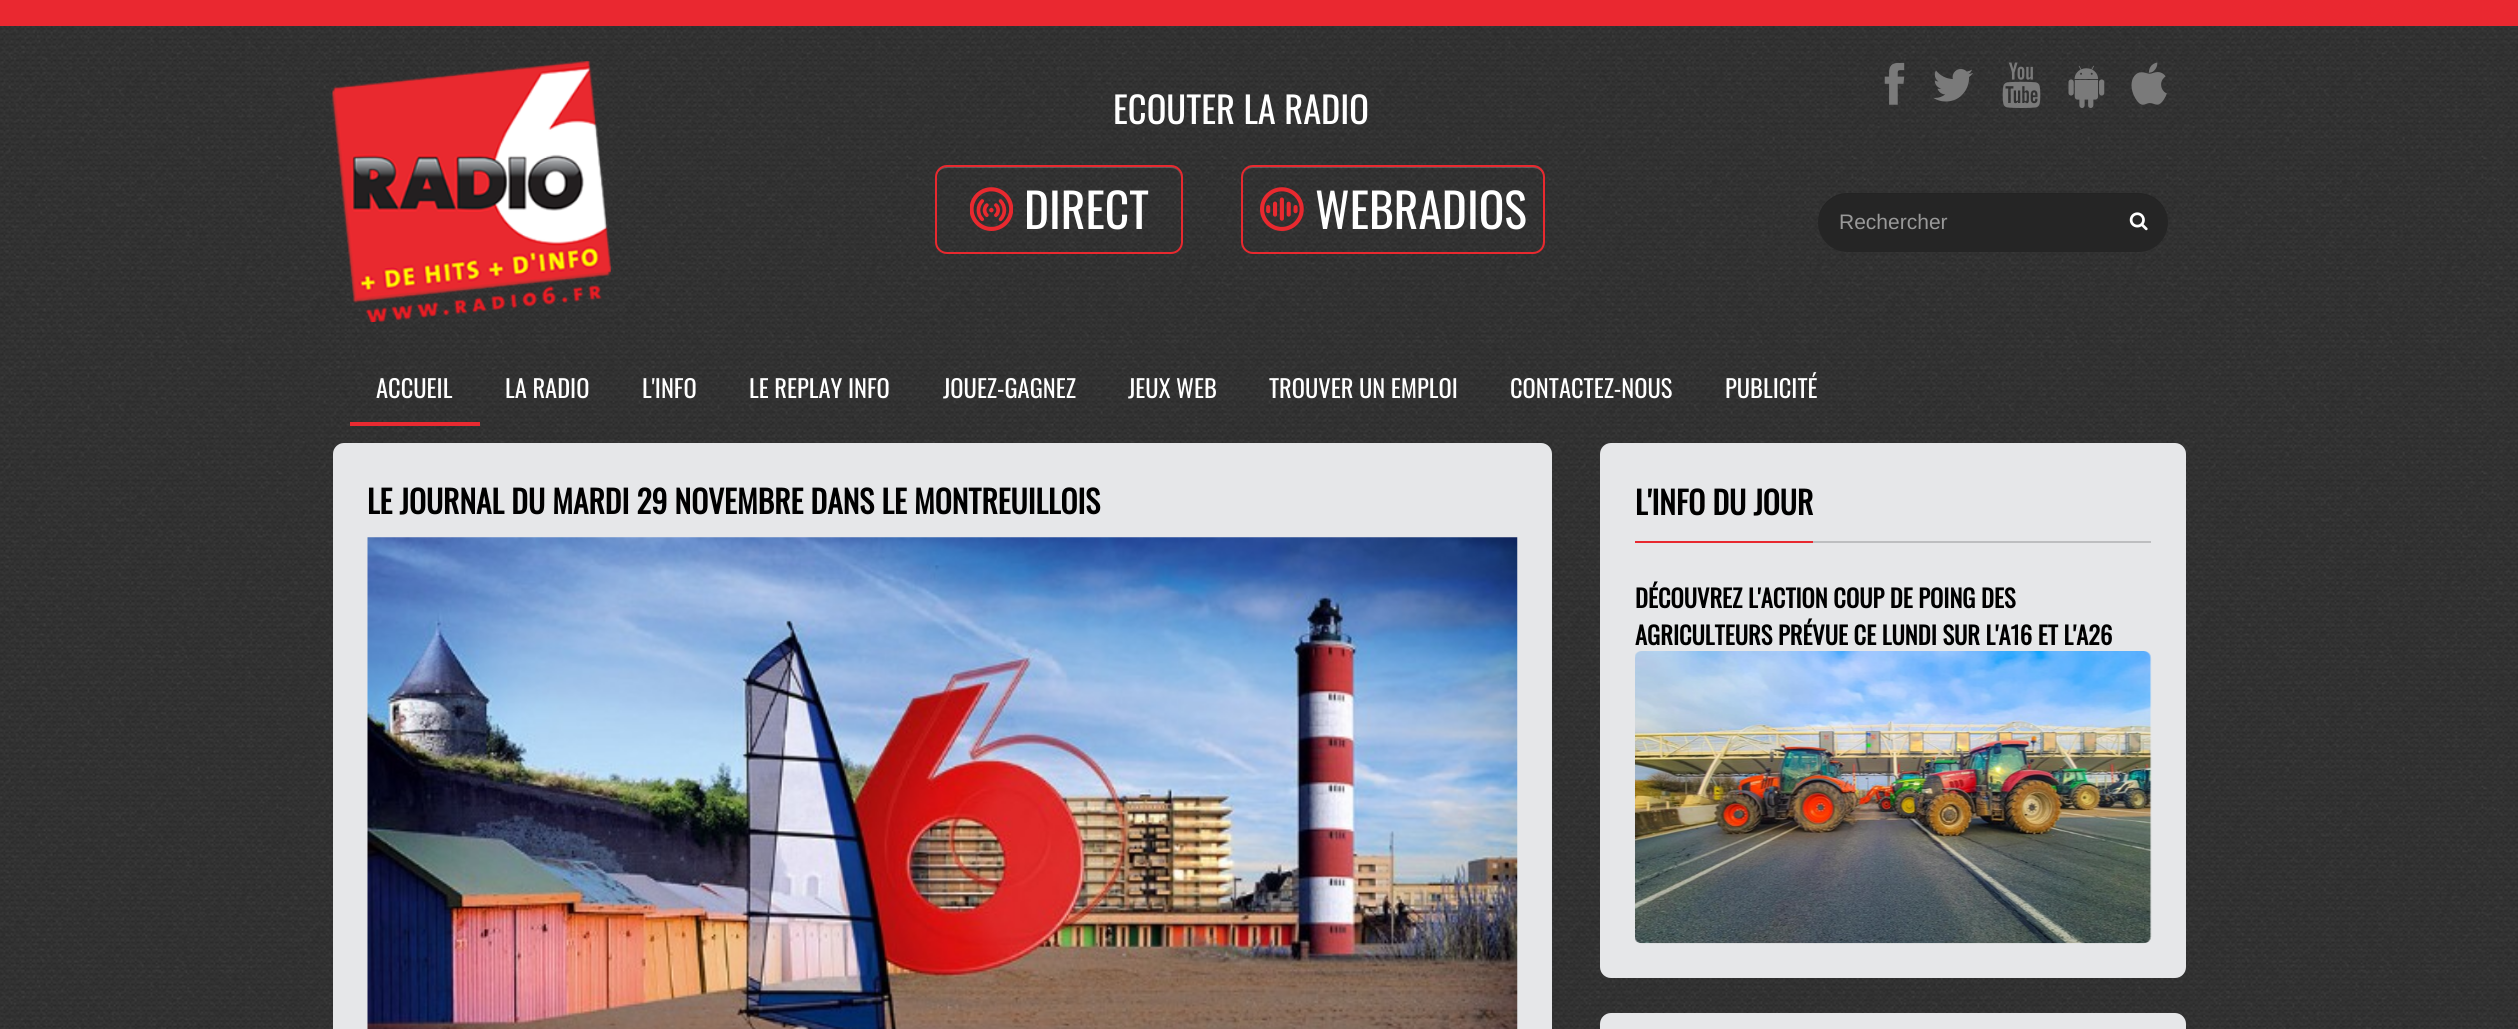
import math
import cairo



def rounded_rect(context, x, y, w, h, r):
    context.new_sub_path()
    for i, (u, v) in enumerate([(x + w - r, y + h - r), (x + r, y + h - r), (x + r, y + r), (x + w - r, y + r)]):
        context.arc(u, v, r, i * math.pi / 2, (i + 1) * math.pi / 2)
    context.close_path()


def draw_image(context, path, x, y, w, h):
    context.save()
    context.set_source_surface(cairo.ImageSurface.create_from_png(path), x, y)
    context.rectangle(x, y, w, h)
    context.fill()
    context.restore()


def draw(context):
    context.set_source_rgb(1, 1, 1)
    context.paint()
    draw_image(context, "images/1.png", 0, 26, 2518, 1003)
    context.set_source_rgb(234 / 255, 40 / 255, 48 / 255)
    context.rectangle(0, 0, 2518, 26)
    context.fill()
    draw_image(context, "images/2.png", 332, 61, 279, 261)
    context.set_source_rgba(1, 1, 1, 0.2)
    context.new_path()
    context.move_to(947, 168)
    context.line_to(1171, 168)
    context.curve_to(1177, 168, 1181, 173, 1181, 178)
    context.line_to(1181, 177)
    context.curve_to(1181, 171, 1176, 166, 1170, 166)
    context.line_to(947, 166)
    context.curve_to(941, 166, 936, 171, 936, 177)
    context.line_to(936, 178)
    context.curve_to(936, 173, 941, 168, 947, 168)
    context.close_path()
    context.fill()
    rounded_rect(context, 936, 166, 246, 87, 11)
    context.set_source_rgb(233 / 255, 41 / 255, 47 / 255)
    context.stroke()
    draw_image(context, "images/3.png", 970, 187, 43, 44)
    context.set_source_rgba(1, 1, 1, 0.2)
    context.new_path()
    context.move_to(1253, 168)
    context.line_to(1533, 168)
    context.curve_to(1539, 168, 1544, 173, 1544, 178)
    context.line_to(1544, 177)
    context.curve_to(1544, 171, 1539, 166, 1533, 166)
    context.line_to(1254, 166)
    context.curve_to(1249, 166, 1246, 169, 1244, 173)
    context.curve_to(1246, 170, 1249, 168, 1253, 168)
    context.close_path()
    context.fill()
    rounded_rect(context, 1242, 166, 302, 87, 11)
    context.set_source_rgb(233 / 255, 41 / 255, 47 / 255)
    context.stroke()
    draw_image(context, "images/4.png", 1260, 187, 44, 44)
    draw_image(context, "images/5.png", 1884, 62, 21, 43)
    draw_image(context, "images/6.png", 1933, 69, 40, 33)
    draw_image(context, "images/7.png", 2002, 62, 39, 46)
    draw_image(context, "images/8.png", 2068, 65, 37, 43)
    draw_image(context, "images/9.png", 2131, 62, 36, 43)
    context.set_source_rgb(37 / 255, 37 / 255, 37 / 255)
    rounded_rect(context, 1818, 193, 350, 59, 29.5)
    context.fill()
    context.set_source_rgba(0, 0, 0, 0.07)
    context.new_path()
    context.move_to(1848, 194)
    context.line_to(2138, 194)
    context.curve_to(2155, 194, 2168, 208, 2168, 223)
    context.line_to(2168, 222)
    context.curve_to(2168, 206, 2155, 193, 2138, 193)
    context.line_to(1848, 193)
    context.curve_to(1831, 193, 1818, 206, 1818, 222)
    context.line_to(1818, 223)
    context.curve_to(1818, 208, 1832, 194, 1848, 194)
    context.close_path()
    context.fill()
    draw_image(context, "images/10.png", 2129, 212, 19, 19)
    context.set_source_rgb(233 / 255, 42 / 255, 49 / 255)
    context.rectangle(350, 422, 130, 4)
    context.fill()
    context.set_source_rgb(230 / 255, 231 / 255, 233 / 255)
    rounded_rect(context, 333, 443, 1219, 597, 11)
    context.fill()
    draw_image(context, "images/11.png", 367, 537, 1151, 492)
    rounded_rect(context, 1600, 443, 586, 535, 11)
    context.fill()
    context.set_source_rgb(232 / 255, 41 / 255, 48 / 255)
    context.rectangle(1635, 541, 178, 2)
    context.fill()
    context.set_source_rgb(189 / 255, 190 / 255, 192 / 255)
    context.rectangle(1813, 541, 338, 2)
    context.fill()
    draw_image(context, "images/12.png", 1635, 651, 517, 293)
    context.set_source_rgb(230 / 255, 231 / 255, 233 / 255)
    rounded_rect(context, 1600, 1013, 586, 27, 11)
    context.fill()
    context.select_font_face("Oswald")
    context.set_font_size(36.5)
    context.set_source_rgb(1, 1, 1)
    context.move_to(1113, 124)
    context.show_text("ECOUTER LA RADIO")
    context.set_font_size(47.5)
    context.move_to(1024, 229)
    context.show_text("DIRECT")
    context.move_to(1315, 229)
    context.show_text("WEBRADIOS")
    context.select_font_face("Liberation Sans")
    context.set_font_size(21)
    context.set_source_rgb(153 / 255, 153 / 255, 153 / 255)
    context.move_to(1839, 229)
    context.show_text("Rechercher")
    context.select_font_face("Oswald")
    context.set_font_size(24.5)
    context.set_source_rgb(1, 1, 1)
    context.move_to(376, 398)
    context.show_text("ACCUEIL")
    context.move_to(505, 398)
    context.show_text("LA RADIO")
    context.move_to(642, 398)
    context.show_text("L'INFO")
    context.move_to(749, 398)
    context.show_text("LE REPLAY INFO")
    context.move_to(943, 398)
    context.show_text("JOUEZ-GAGNEZ")
    context.move_to(1128, 398)
    context.show_text("JEUX WEB")
    context.move_to(1269, 398)
    context.show_text("TROUVER UN EMPLOI")
    context.move_to(1510, 398)
    context.show_text("CONTACTEZ-NOUS")
    context.move_to(1725, 398)
    context.show_text("PUBLICITÉ")
    context.select_font_face("Oswald", cairo.FontSlant.NORMAL, cairo.FontWeight.BOLD)
    context.set_font_size(31.5)
    context.set_source_rgb(0, 0, 0)
    context.move_to(367, 514)
    context.show_text("LE JOURNAL DU MARDI 29 NOVEMBRE DANS LE MONTREUILLOIS")
    context.move_to(1635, 515)
    context.show_text("L'INFO DU JOUR")
    context.set_font_size(24.5)
    context.move_to(1635, 608)
    context.show_text("DÉCOUVREZ L'ACTION COUP DE POING DES")
    context.move_to(1635, 645)
    context.show_text("AGRICULTEURS PRÉVUE CE LUNDI SUR L'A16 ET L'A26")


surface = cairo.ImageSurface(cairo.Format.RGB24, 2518, 1029)
context = cairo.Context(surface)
options = cairo.FontOptions()
options.set_hint_metrics(cairo.HintMetrics.OFF)
options.set_hint_style(cairo.HintStyle.NONE)
context.set_font_options(options)
context.set_miter_limit(4)
draw(context)
surface.write_to_png("out.png")
